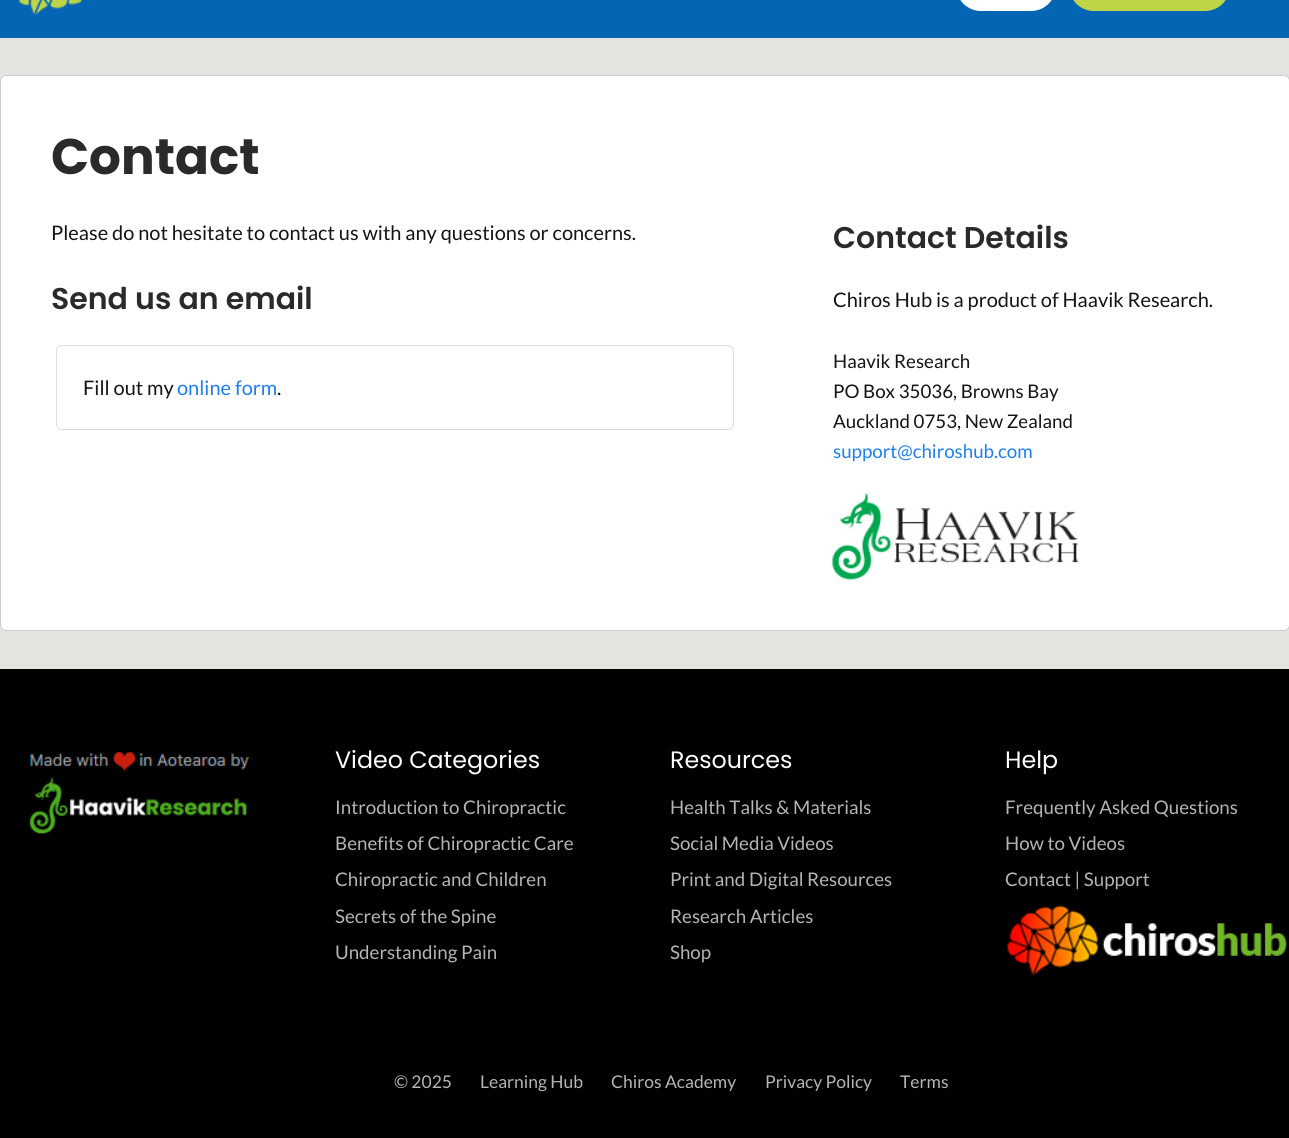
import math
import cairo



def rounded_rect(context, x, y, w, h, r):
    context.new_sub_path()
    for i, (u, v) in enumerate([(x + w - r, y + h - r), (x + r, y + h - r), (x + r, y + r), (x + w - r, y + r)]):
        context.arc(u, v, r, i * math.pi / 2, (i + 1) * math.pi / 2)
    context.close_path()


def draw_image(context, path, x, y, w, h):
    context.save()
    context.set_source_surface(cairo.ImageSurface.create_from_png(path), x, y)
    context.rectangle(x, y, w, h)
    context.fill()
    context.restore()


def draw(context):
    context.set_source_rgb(227 / 255, 229 / 255, 225 / 255)
    context.paint()
    context.set_source_rgb(5 / 255, 101 / 255, 181 / 255)
    context.rectangle(0, 0, 1289, 38)
    context.fill()
    draw_image(context, "images/1.png", 18, 0, 65, 16)
    context.set_source_rgb(1, 1, 1)
    rounded_rect(context, 956, -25, 100, 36, 25)
    context.fill()
    context.set_source_rgb(190 / 255, 213 / 255, 71 / 255)
    rounded_rect(context, 1069, -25, 161, 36, 25)
    context.fill()
    context.set_source_rgb(1, 1, 1)
    rounded_rect(context, 0.5, 75.5, 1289, 555, 5.5)
    context.fill_preserve()
    context.set_source_rgb(204 / 255, 204 / 255, 204 / 255)
    context.set_line_width(1)
    context.stroke()
    rounded_rect(context, 56.5, 345.5, 677, 84, 5.5)
    context.set_source_rgb(221 / 255, 221 / 255, 221 / 255)
    context.stroke()
    draw_image(context, "images/2.png", 832, 493, 247, 87)
    context.set_source_rgb(0, 0, 0)
    context.rectangle(0, 669, 1289, 469)
    context.fill()
    draw_image(context, "images/3.png", 29, 751, 220, 83)
    draw_image(context, "images/4.png", 1006, 905, 281, 71)
    context.select_font_face("Poppins", cairo.FontSlant.NORMAL, cairo.FontWeight.BOLD)
    context.set_font_size(50)
    context.set_source_rgb(42 / 255, 42 / 255, 42 / 255)
    context.move_to(51, 174)
    context.show_text("Contact")
    context.select_font_face("Lato")
    context.set_font_size(20)
    context.set_source_rgb(20 / 255, 20 / 255, 20 / 255)
    context.move_to(51, 240)
    context.show_text("Please do not hesitate to contact us with any questions or concerns.")
    context.select_font_face("Poppins SemiBold")
    context.set_font_size(30)
    context.set_source_rgb(42 / 255, 42 / 255, 42 / 255)
    context.move_to(51, 309)
    context.show_text("Send us an email")
    context.select_font_face("Lato")
    context.set_font_size(20)
    context.set_source_rgb(20 / 255, 20 / 255, 20 / 255)
    context.move_to(83, 395)
    context.show_text("Fill out my")
    context.set_source_rgb(28 / 255, 127 / 255, 242 / 255)
    context.move_to(177, 395)
    context.show_text("online form")
    context.set_source_rgb(20 / 255, 20 / 255, 20 / 255)
    context.move_to(277, 395)
    context.show_text(".")
    context.select_font_face("Poppins SemiBold")
    context.set_font_size(30)
    context.set_source_rgb(42 / 255, 42 / 255, 42 / 255)
    context.move_to(833, 248)
    context.show_text("Contact Details")
    context.select_font_face("Lato")
    context.set_font_size(20)
    context.set_source_rgb(20 / 255, 20 / 255, 20 / 255)
    context.move_to(833, 307)
    context.show_text("Chiros Hub is a product of Haavik Research.")
    context.set_font_size(18.75)
    context.move_to(833, 368)
    context.show_text("Haavik Research")
    context.move_to(833, 398)
    context.show_text("PO Box 35036, Browns Bay")
    context.move_to(833, 428)
    context.show_text("Auckland 0753, New Zealand")
    context.set_source_rgb(28 / 255, 127 / 255, 242 / 255)
    context.move_to(833, 458)
    context.show_text("support@chiroshub.com")
    context.select_font_face("Poppins")
    context.set_font_size(23.75)
    context.set_source_rgb(1, 1, 1)
    context.move_to(335, 768)
    context.show_text("Video Categories")
    context.select_font_face("Lato")
    context.set_font_size(18.75)
    context.set_source_rgb(181 / 255, 181 / 255, 181 / 255)
    context.move_to(335, 814)
    context.show_text("Introduction to Chiropractic")
    context.move_to(335, 850)
    context.show_text("Benefits of Chiropractic Care")
    context.move_to(335, 886)
    context.show_text("Chiropractic and Children")
    context.move_to(335, 923)
    context.show_text("Secrets of the Spine")
    context.move_to(335, 959)
    context.show_text("Understanding Pain")
    context.select_font_face("Poppins")
    context.set_font_size(23.75)
    context.set_source_rgb(1, 1, 1)
    context.move_to(670, 768)
    context.show_text("Resources")
    context.select_font_face("Lato")
    context.set_font_size(18.75)
    context.set_source_rgb(181 / 255, 181 / 255, 181 / 255)
    context.move_to(670, 814)
    context.show_text("Health Talks & Materials")
    context.move_to(670, 850)
    context.show_text("Social Media Videos")
    context.move_to(670, 886)
    context.show_text("Print and Digital Resources")
    context.move_to(670, 923)
    context.show_text("Research Articles")
    context.move_to(670, 959)
    context.show_text("Shop")
    context.select_font_face("Poppins")
    context.set_font_size(23.75)
    context.set_source_rgb(1, 1, 1)
    context.move_to(1005, 768)
    context.show_text("Help")
    context.select_font_face("Lato")
    context.set_font_size(18.75)
    context.set_source_rgb(181 / 255, 181 / 255, 181 / 255)
    context.move_to(1005, 814)
    context.show_text("Frequently Asked Questions")
    context.move_to(1005, 850)
    context.show_text("How to Videos")
    context.move_to(1005, 886)
    context.show_text("Contact | Support")
    context.set_font_size(17.5)
    context.move_to(394, 1088)
    context.show_text("© 2025")
    context.move_to(480, 1088)
    context.show_text("Learning Hub")
    context.move_to(611, 1088)
    context.show_text("Chiros Academy")
    context.move_to(765, 1088)
    context.show_text("Privacy Policy")
    context.move_to(900, 1088)
    context.show_text("Terms")


surface = cairo.ImageSurface(cairo.Format.RGB24, 1289, 1138)
context = cairo.Context(surface)
options = cairo.FontOptions()
options.set_hint_metrics(cairo.HintMetrics.OFF)
options.set_hint_style(cairo.HintStyle.NONE)
context.set_font_options(options)
context.set_miter_limit(4)
draw(context)
surface.write_to_png("out.png")
